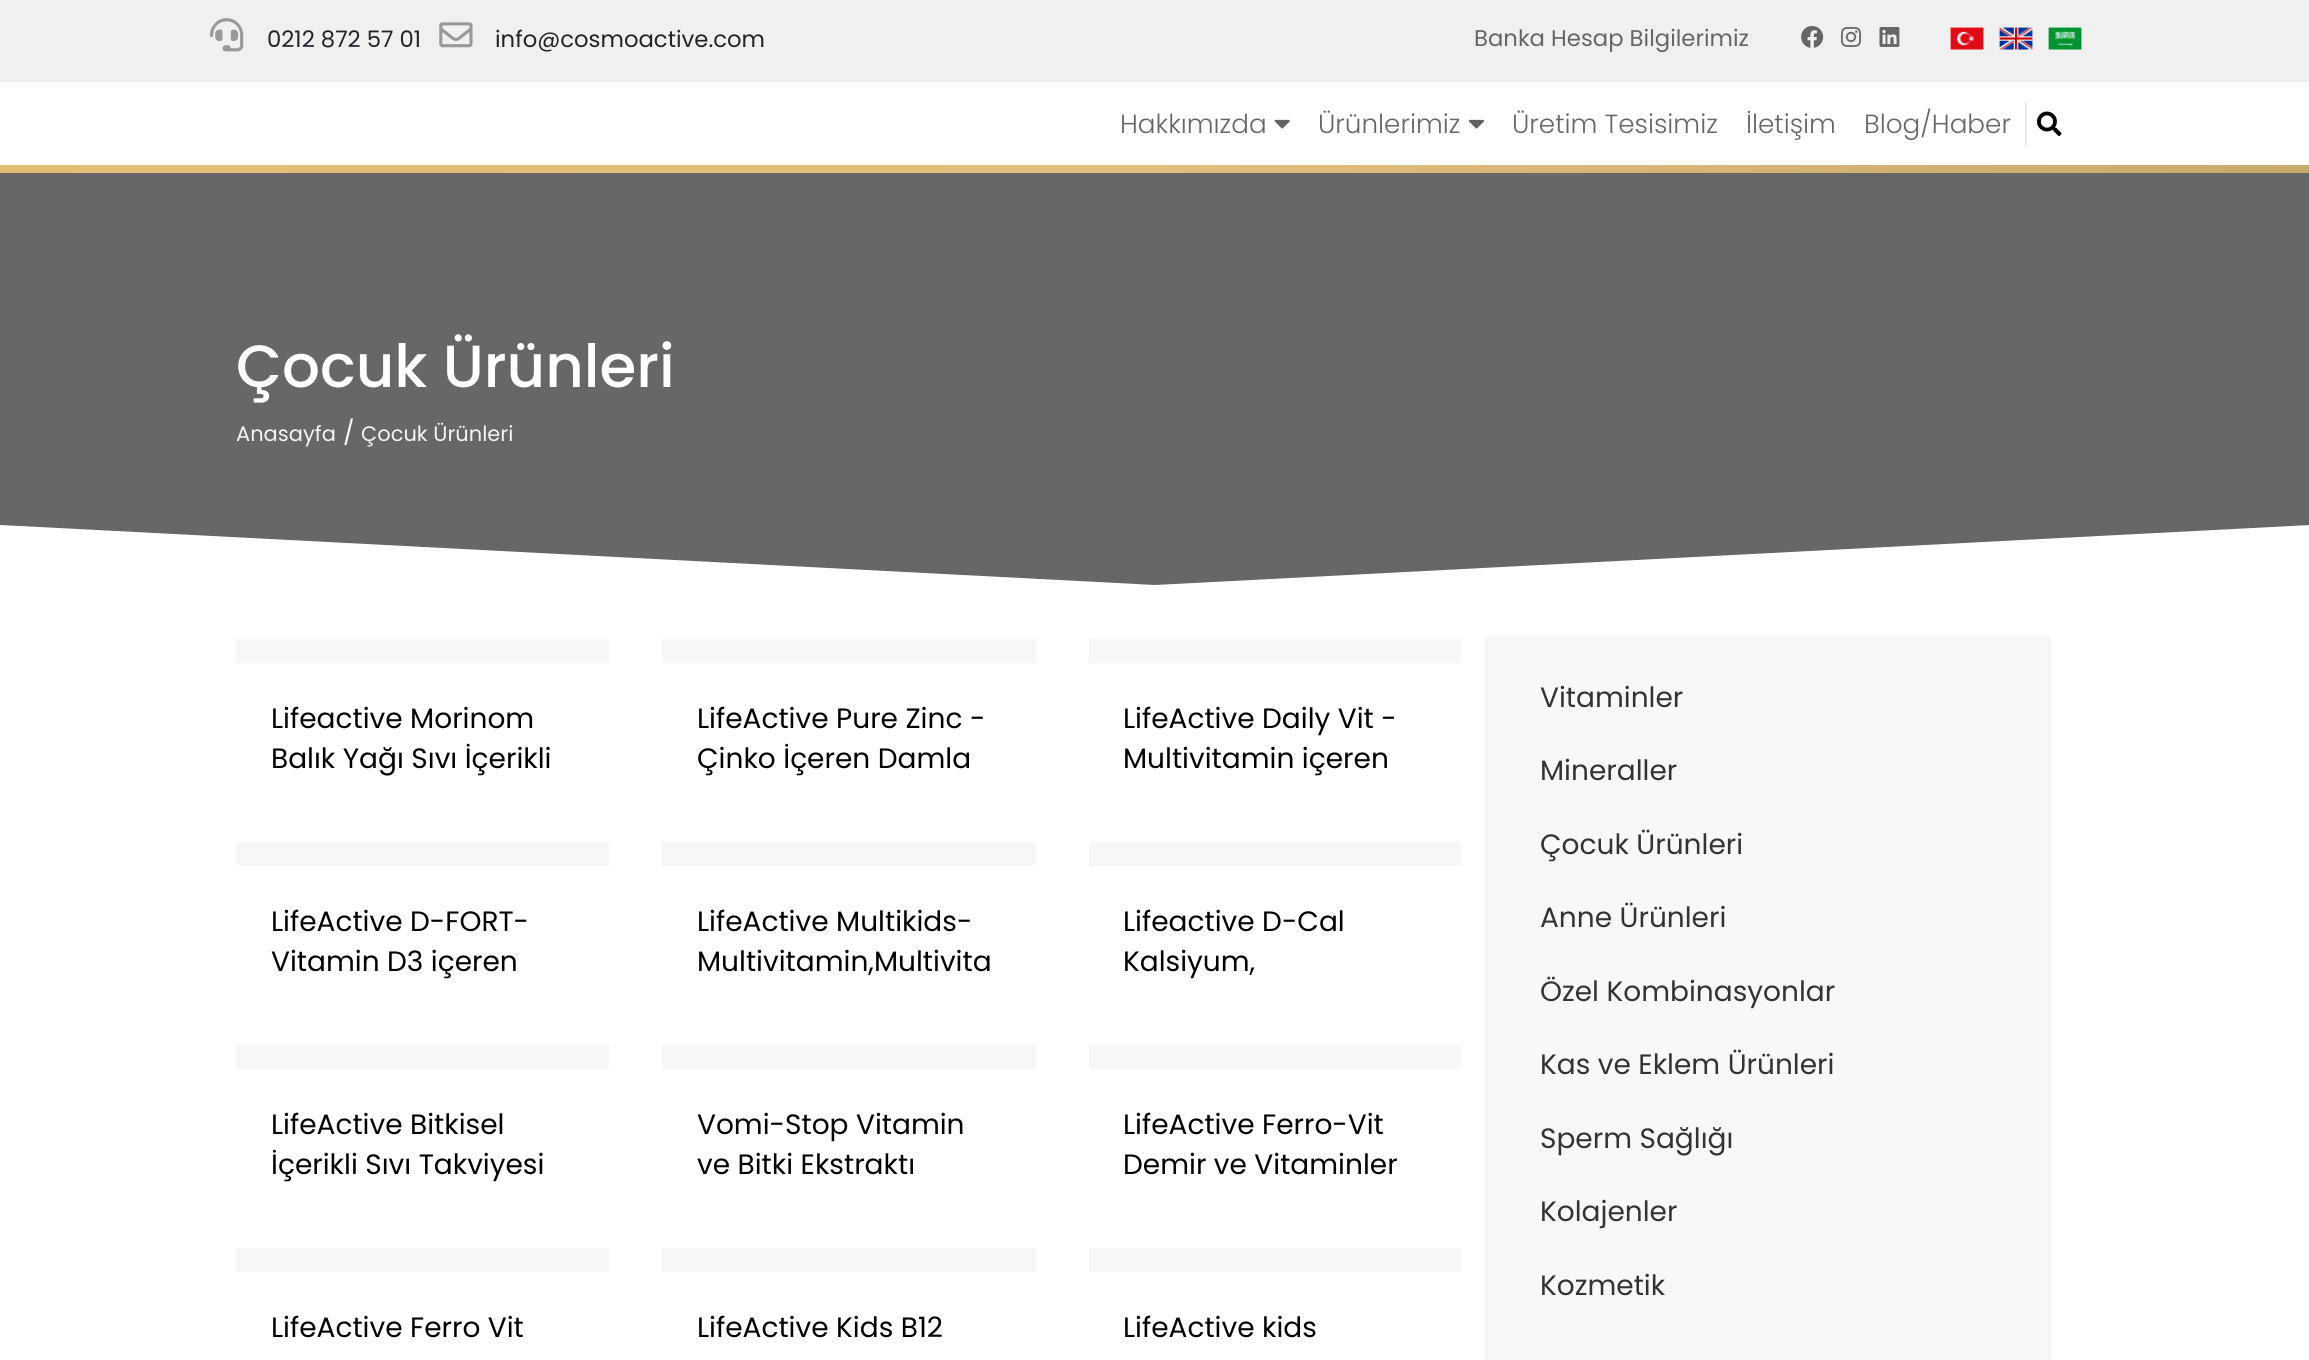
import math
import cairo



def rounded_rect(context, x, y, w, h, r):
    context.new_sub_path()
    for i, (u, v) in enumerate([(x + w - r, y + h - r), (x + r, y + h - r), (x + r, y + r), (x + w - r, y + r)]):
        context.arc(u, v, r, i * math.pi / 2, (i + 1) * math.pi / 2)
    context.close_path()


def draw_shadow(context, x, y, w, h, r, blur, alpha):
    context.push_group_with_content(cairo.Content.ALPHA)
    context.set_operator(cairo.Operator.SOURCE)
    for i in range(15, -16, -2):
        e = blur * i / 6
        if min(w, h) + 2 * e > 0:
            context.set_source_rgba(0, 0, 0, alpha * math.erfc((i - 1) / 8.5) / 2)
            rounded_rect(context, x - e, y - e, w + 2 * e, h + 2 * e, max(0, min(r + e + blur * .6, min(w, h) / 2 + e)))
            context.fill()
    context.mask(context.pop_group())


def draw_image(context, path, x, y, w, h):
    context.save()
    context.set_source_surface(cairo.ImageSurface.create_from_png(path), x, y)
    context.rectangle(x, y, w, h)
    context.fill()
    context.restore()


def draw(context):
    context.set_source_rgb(1, 1, 1)
    context.paint()
    context.set_source_rgb(240 / 255, 240 / 255, 240 / 255)
    context.rectangle(0, 0, 2309, 81)
    context.fill()
    context.set_source_rgb(235 / 255, 235 / 255, 235 / 255)
    context.rectangle(0, 81, 2309, 1)
    context.fill()
    draw_image(context, "images/1.png", 210, 18, 34, 34)
    draw_image(context, "images/2.png", 439, 22, 34, 26)
    draw_image(context, "images/3.png", 1801, 26, 23, 22)
    draw_image(context, "images/4.png", 1841, 27, 20, 20)
    draw_image(context, "images/5.png", 1879, 27, 21, 20)
    draw_image(context, "images/6.png", 1950, 27, 34, 23)
    draw_image(context, "images/7.png", 1999, 27, 34, 23)
    draw_image(context, "images/8.png", 2048, 27, 34, 23)
    draw_image(context, "images/9.png", 1274, 119, 16, 10)
    draw_image(context, "images/10.png", 1468, 119, 16, 10)
    context.rectangle(2025, 102, 2, 45)
    context.fill()
    draw_image(context, "images/11.png", 2037, 111, 25, 25)
    gradient = cairo.LinearGradient(0, 169, 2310, 169)
    gradient.add_color_stop_rgba(0, 228 / 255, 189 / 255, 117 / 255, 1)
    gradient.add_color_stop_rgba(0.5, 226 / 255, 190 / 255, 125 / 255, 1)
    gradient.add_color_stop_rgba(1, 200 / 255, 170 / 255, 108 / 255, 1)
    context.set_source(gradient)
    context.rectangle(0, 165, 2309, 8)
    context.fill()
    context.set_source_rgb(103 / 255, 103 / 255, 103 / 255)
    context.rectangle(0, 173, 2309, 412)
    context.fill()
    context.set_source_rgb(1, 1, 1)
    context.new_path()
    context.move_to(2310, 586)
    context.line_to(0, 586)
    context.line_to(0, 525)
    context.line_to(1155, 585)
    context.line_to(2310, 525)
    context.close_path()
    context.fill()
    context.set_source_rgb(247 / 255, 247 / 255, 247 / 255)
    context.rectangle(236, 639, 373, 24)
    context.fill()
    context.rectangle(662, 639, 374, 24)
    context.fill()
    context.rectangle(1089, 639, 372, 24)
    context.fill()
    context.rectangle(236, 842, 373, 24)
    context.fill()
    context.rectangle(662, 842, 374, 24)
    context.fill()
    context.rectangle(1089, 842, 372, 24)
    context.fill()
    context.rectangle(236, 1045, 373, 24)
    context.fill()
    context.rectangle(662, 1045, 374, 24)
    context.fill()
    context.rectangle(1089, 1045, 372, 24)
    context.fill()
    context.rectangle(236, 1248, 373, 24)
    context.fill()
    context.rectangle(662, 1248, 374, 24)
    context.fill()
    context.rectangle(1089, 1248, 372, 24)
    context.fill()
    context.set_source_rgb(221 / 255, 221 / 255, 221 / 255)
    draw_shadow(context, 1488, 639, 560, 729, 0, 2.5, 1)
    context.set_source_rgb(248 / 255, 248 / 255, 248 / 255)
    context.rectangle(1488, 638, 560, 722)
    context.fill()
    context.select_font_face("Poppins")
    context.set_font_size(22.75)
    context.set_source_rgb(33 / 255, 37 / 255, 41 / 255)
    context.move_to(267, 47)
    context.show_text("0212 872 57 01")
    context.move_to(495, 47)
    context.show_text("info@cosmoactive.com")
    context.set_source_rgb(102 / 255, 102 / 255, 102 / 255)
    context.move_to(1474, 46)
    context.show_text("Banka Hesap Bilgilerimiz")
    context.select_font_face("Poppins Light")
    context.set_font_size(26.25)
    context.move_to(1120, 133)
    context.show_text("Hakkımızda")
    context.move_to(1318, 133)
    context.show_text("Ürünlerimiz")
    context.move_to(1512, 133)
    context.show_text("Üretim Tesisimiz")
    context.move_to(1746, 133)
    context.show_text("İletişim")
    context.move_to(1864, 133)
    context.show_text("Blog/Haber")
    context.select_font_face("Poppins Medium")
    context.set_font_size(59.5)
    context.set_source_rgb(1, 1, 1)
    context.move_to(236, 387)
    context.show_text("Çocuk Ürünleri")
    context.select_font_face("Poppins")
    context.set_font_size(21)
    context.set_source_rgb(244 / 255, 244 / 255, 244 / 255)
    context.move_to(236, 441)
    context.show_text("Anasayfa")
    context.set_font_size(24)
    context.set_source_rgb(1, 1, 1)
    context.move_to(343, 441)
    context.show_text("/")
    context.set_font_size(21)
    context.set_source_rgb(244 / 255, 244 / 255, 244 / 255)
    context.move_to(361, 441)
    context.show_text("Çocuk Ürünleri")
    context.set_font_size(28)
    context.set_source_rgb(0, 0, 0)
    context.move_to(271, 728)
    context.show_text("Lifeactive Morinom")
    context.move_to(271, 768)
    context.show_text("Balık Yağı Sıvı İçerikli")
    context.move_to(697, 728)
    context.show_text("LifeActive Pure Zinc -")
    context.move_to(697, 768)
    context.show_text("Çinko İçeren Damla")
    context.move_to(1123, 728)
    context.show_text("LifeActive Daily Vit -")
    context.move_to(1123, 768)
    context.show_text("Multivitamin içeren")
    context.move_to(271, 931)
    context.show_text("LifeActive D-FORT-")
    context.move_to(271, 971)
    context.show_text("Vitamin D3 içeren")
    context.move_to(697, 931)
    context.show_text("LifeActive Multikids-")
    context.move_to(697, 971)
    context.show_text("Multivitamin,Multivita")
    context.move_to(1123, 931)
    context.show_text("Lifeactive D-Cal")
    context.move_to(1123, 971)
    context.show_text("Kalsiyum,")
    context.move_to(271, 1134)
    context.show_text("LifeActive Bitkisel")
    context.move_to(271, 1174)
    context.show_text("İçerikli Sıvı Takviyesi")
    context.move_to(697, 1134)
    context.show_text("Vomi-Stop Vitamin")
    context.move_to(697, 1174)
    context.show_text("ve Bitki Ekstraktı")
    context.move_to(1123, 1134)
    context.show_text("LifeActive Ferro-Vit")
    context.move_to(1123, 1174)
    context.show_text("Demir ve Vitaminler")
    context.move_to(271, 1337)
    context.show_text("LifeActive Ferro Vit")
    context.move_to(697, 1337)
    context.show_text("LifeActive Kids B12")
    context.move_to(1123, 1337)
    context.show_text("LifeActive kids")
    context.set_source_rgb(51 / 255, 51 / 255, 51 / 255)
    context.move_to(1540, 707)
    context.show_text("Vitaminler")
    context.move_to(1540, 780)
    context.show_text("Mineraller")
    context.move_to(1540, 854)
    context.show_text("Çocuk Ürünleri")
    context.move_to(1540, 927)
    context.show_text("Anne Ürünleri")
    context.move_to(1540, 1001)
    context.show_text("Özel Kombinasyonlar")
    context.move_to(1540, 1074)
    context.show_text("Kas ve Eklem Ürünleri")
    context.move_to(1540, 1148)
    context.show_text("Sperm Sağlığı")
    context.move_to(1540, 1221)
    context.show_text("Kolajenler")
    context.move_to(1540, 1295)
    context.show_text("Kozmetik")


surface = cairo.ImageSurface(cairo.Format.RGB24, 2309, 1360)
context = cairo.Context(surface)
options = cairo.FontOptions()
options.set_hint_metrics(cairo.HintMetrics.OFF)
options.set_hint_style(cairo.HintStyle.NONE)
context.set_font_options(options)
context.set_miter_limit(4)
draw(context)
surface.write_to_png("out.png")
